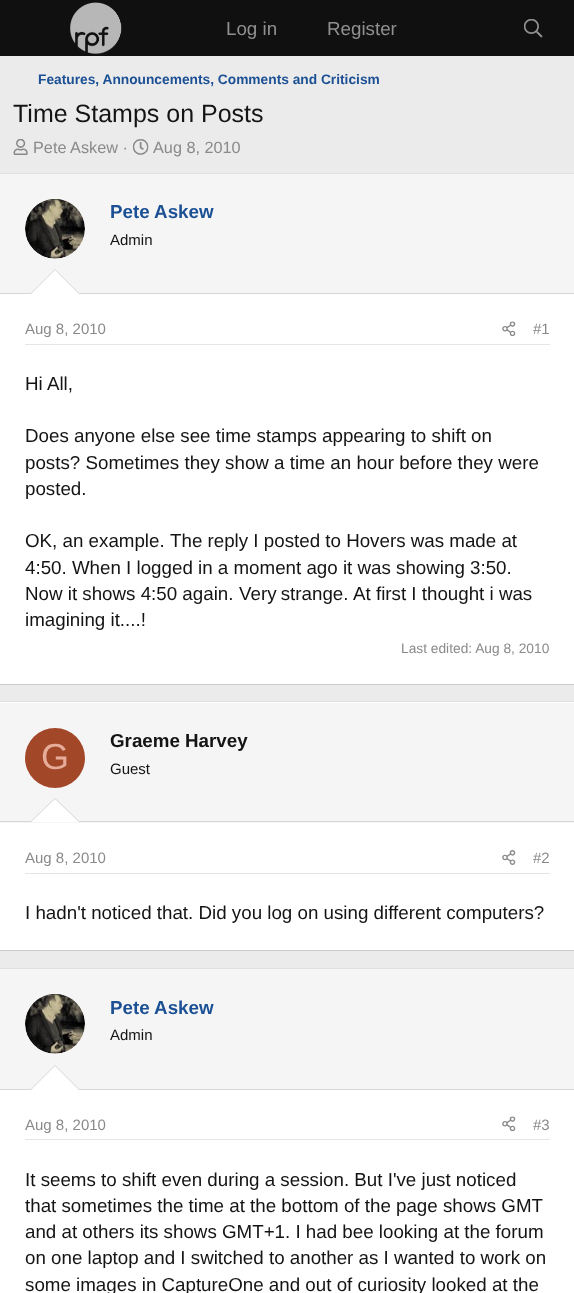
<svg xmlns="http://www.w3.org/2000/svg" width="574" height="1293">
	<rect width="100%" height="100%" fill="#EBEBEB" />
	<rect x="0" y="0" width="574" height="56" fill="#101010" />
	<image x="70" y="2" width="52" height="52" href="assets/img1.png" />
	<g font-family="Liberation Sans" font-size="18.75" fill="#909090">
		<text x="226" y="35">Log in</text>
		<text x="327" y="35">Register</text>
	</g>
	<image x="524" y="19" width="19" height="19" href="assets/img2.png" />
	<text x="38" y="84" font-family="Liberation Sans" font-size="13.75" font-weight="700" fill="#1C5094">Features, Announcements, Comments and Criticism</text>
	<text x="13" y="122" font-family="Liberation Sans" font-size="25" fill="#141414">Time Stamps on Posts</text>
	<image x="13" y="139" width="15" height="16" href="assets/img3.png" />
	<text x="33" y="153" font-family="Liberation Sans" font-size="16.25" fill="#8A8A8A">Pete Askew ·</text>
	<image x="132" y="139" width="17" height="16" href="assets/img4.png" />
	<text x="153" y="153" font-family="Liberation Sans" font-size="16.25" fill="#8A8A8A">Aug 8, 2010</text>
	<rect x="0" y="294" width="574" height="390" fill="#FFFFFF" />
	<rect x="0" y="173" width="574" height="1" fill="#E0E0E0" />
	<rect x="0" y="684" width="574" height="1" fill="#CCCCCC" />
	<rect x="0" y="174" width="574" height="119" fill="#F5F5F5" />
	<rect x="0" y="293" width="574" height="1" fill="#D6D6D6" />
	<circle cx="55" cy="229" r="30" fill="#FFFFFF" />
	<image x="25" y="199" width="60" height="60" href="assets/img5.png" />
	<text x="110" y="218" font-family="Liberation Sans" font-size="18.75" font-weight="700" fill="#1C5094">Pete Askew</text>
	<text x="110" y="245" font-family="Liberation Sans" font-size="15" fill="#141414">Admin</text>
	<path d="M80 294H30L55 269Z" fill="#D6D6D6" />
	<path d="M79 294H31L55 270Z" fill="#FFFFFF" />
	<rect x="25" y="344" width="525" height="1" fill="#E5E5E5" />
	<text x="25" y="334" font-family="Liberation Sans" font-size="15" fill="#8A8A8A">Aug 8, 2010</text>
	<image x="502" y="321" width="14" height="15" href="assets/img6.png" />
	<text x="533" y="334" font-family="Liberation Sans" font-size="15" fill="#8A8A8A">#1</text>
	<g font-family="Liberation Sans" font-size="18.75" fill="#141414">
		<text x="25" y="390">Hi All,</text>
		<text x="25" y="442">Does anyone else see time stamps appearing to shift on</text>
		<text x="25" y="469">posts? Sometimes they show a time an hour before they were</text>
		<text x="25" y="495">posted.</text>
		<text x="25" y="547">OK, an example.</text>
		<text x="170" y="547">The reply I posted to Hovers was made at</text>
		<text x="25" y="574">4:50. When I logged in a moment ago it was showing 3:50.</text>
		<text x="25" y="600">Now it shows 4:50 again.</text>
		<text x="239" y="600" word-spacing="-1">Very strange.</text>
		<text x="353" y="600">At first I thought i was</text>
		<text x="25" y="626">imagining it....!</text>
	</g>
	<text x="401" y="653" font-family="Liberation Sans" font-size="13.75" fill="#8A8A8A">Last edited: Aug 8, 2010</text>
	<rect x="0" y="702" width="574" height="248" fill="#FFFFFF" />
	<rect x="0" y="701" width="574" height="1" fill="#E0E0E0" />
	<rect x="0" y="950" width="574" height="1" fill="#CCCCCC" />
	<rect x="0" y="703" width="574" height="120" fill="#F5F5F5" />
	<rect x="0" y="821" width="574" height="1" fill="#D6D6D6" />
	<circle cx="55" cy="758" r="30" fill="#A34729" />
	<text x="41" y="769" font-family="Liberation Sans" font-size="36" fill="#E6AC99">G</text>
	<text x="110" y="747" font-family="Liberation Sans" font-size="18.75" font-weight="700" fill="#141414">Graeme Harvey</text>
	<text x="110" y="774" font-family="Liberation Sans" font-size="15" fill="#141414">Guest</text>
	<path d="M80 822H30L55 798Z" fill="#D6D6D6" />
	<path d="M79 822H31L55 799Z" fill="#FFFFFF" />
	<rect x="25" y="873" width="525" height="1" fill="#E5E5E5" />
	<text x="25" y="863" font-family="Liberation Sans" font-size="15" fill="#8A8A8A">Aug 8, 2010</text>
	<image x="502" y="850" width="14" height="15" href="assets/img7.png" />
	<text x="533" y="863" font-family="Liberation Sans" font-size="15" fill="#8A8A8A">#2</text>
	<text x="25" y="919" font-family="Liberation Sans" font-size="18.75" fill="#141414">I hadn't noticed that. Did you log on using different computers?</text>
	<rect x="0" y="1090" width="574" height="203" fill="#FFFFFF" />
	<rect x="0" y="968" width="574" height="1" fill="#E0E0E0" />
	<rect x="0" y="969" width="574" height="120" fill="#F5F5F5" />
	<rect x="0" y="1089" width="574" height="1" fill="#D6D6D6" />
	<circle cx="55" cy="1024" r="30" fill="#FFFFFF" />
	<image x="25" y="994" width="60" height="60" href="assets/img8.png" />
	<text x="110" y="1014" font-family="Liberation Sans" font-size="18.75" font-weight="700" fill="#1C5094">Pete Askew</text>
	<text x="110" y="1040" font-family="Liberation Sans" font-size="15" fill="#141414">Admin</text>
	<path d="M80 1090H30L55 1065Z" fill="#D6D6D6" />
	<path d="M79 1090H31L55 1066Z" fill="#FFFFFF" />
	<rect x="25" y="1139" width="525" height="1" fill="#E5E5E5" />
	<text x="25" y="1130" font-family="Liberation Sans" font-size="15" fill="#8A8A8A">Aug 8, 2010</text>
	<image x="502" y="1116" width="14" height="15" href="assets/img6.png" />
	<text x="533" y="1130" font-family="Liberation Sans" font-size="15" fill="#8A8A8A">#3</text>
	<g font-family="Liberation Sans" font-size="18.75" fill="#141414">
		<text x="25" y="1186">It seems to shift even during a session. But I've just noticed</text>
		<text x="25" y="1212">that sometimes the time at the bottom of the page shows GMT</text>
		<text x="25" y="1238">and at others its shows GMT+1. I had bee looking at the forum</text>
		<text x="25" y="1264">on one laptop and I switched to another as I wanted to work on</text>
		<text x="25" y="1291">some images in CaptureOne and out of curiosity looked at the</text>
	</g>
</svg>
